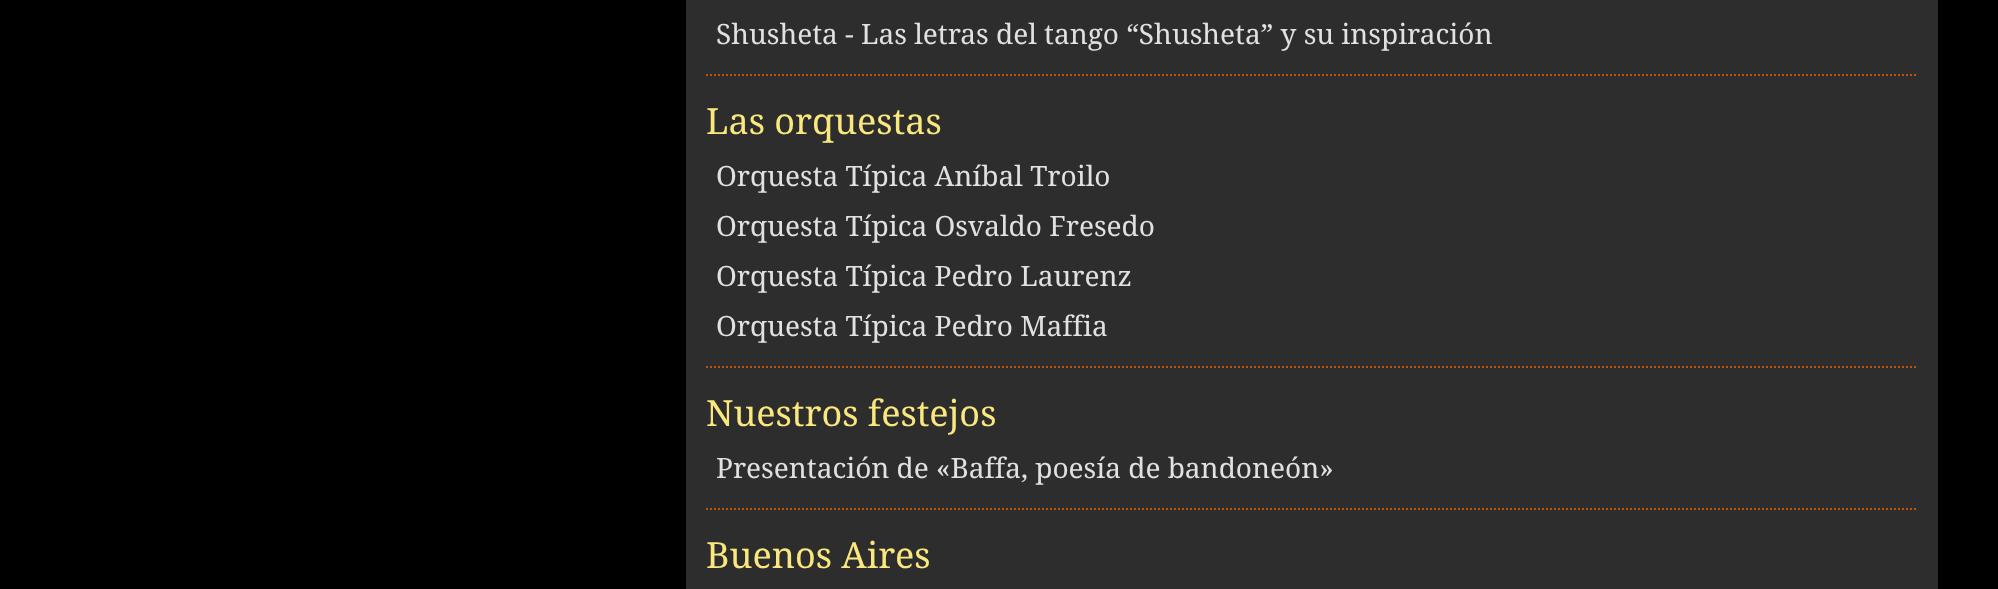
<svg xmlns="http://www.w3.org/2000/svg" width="1998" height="589">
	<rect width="100%" height="100%" fill="#000000" />
	<rect x="686" y="0" width="1252" height="589" fill="#2D2D2D" />
	<text x="716" y="44" font-family="Droid Serif" font-size="28" fill="#E1E1E1">Shusheta - Las letras del tango “Shusheta” y su inspiración</text>
	<path d="M706 75H1918" fill="none" stroke="#BD5208" stroke-width="2" stroke-dasharray="2 2" />
	<text x="706" y="134" font-family="Droid Serif" font-size="36" fill="#FAE77E">Las orquestas</text>
	<g font-family="Droid Serif" font-size="28" fill="#E1E1E1">
		<text x="716" y="186">Orquesta Típica Aníbal Troilo</text>
		<text x="716" y="236">Orquesta Típica Osvaldo Fresedo</text>
		<text x="716" y="286">Orquesta Típica Pedro Laurenz</text>
		<text x="716" y="336">Orquesta Típica Pedro Maffia</text>
	</g>
	<path d="M706 367H1918" fill="none" stroke="#BD5208" stroke-width="2" stroke-dasharray="2 2" />
	<text x="706" y="426" font-family="Droid Serif" font-size="36" fill="#FAE77E">Nuestros festejos</text>
	<text x="716" y="478" font-family="Droid Serif" font-size="28" fill="#E1E1E1">Presentación de «Baffa, poesía de bandoneón»</text>
	<path d="M706 509H1918" fill="none" stroke="#BD5208" stroke-width="2" stroke-dasharray="2 2" />
	<text x="706" y="568" font-family="Droid Serif" font-size="36" fill="#FAE77E">Buenos Aires</text>
</svg>
